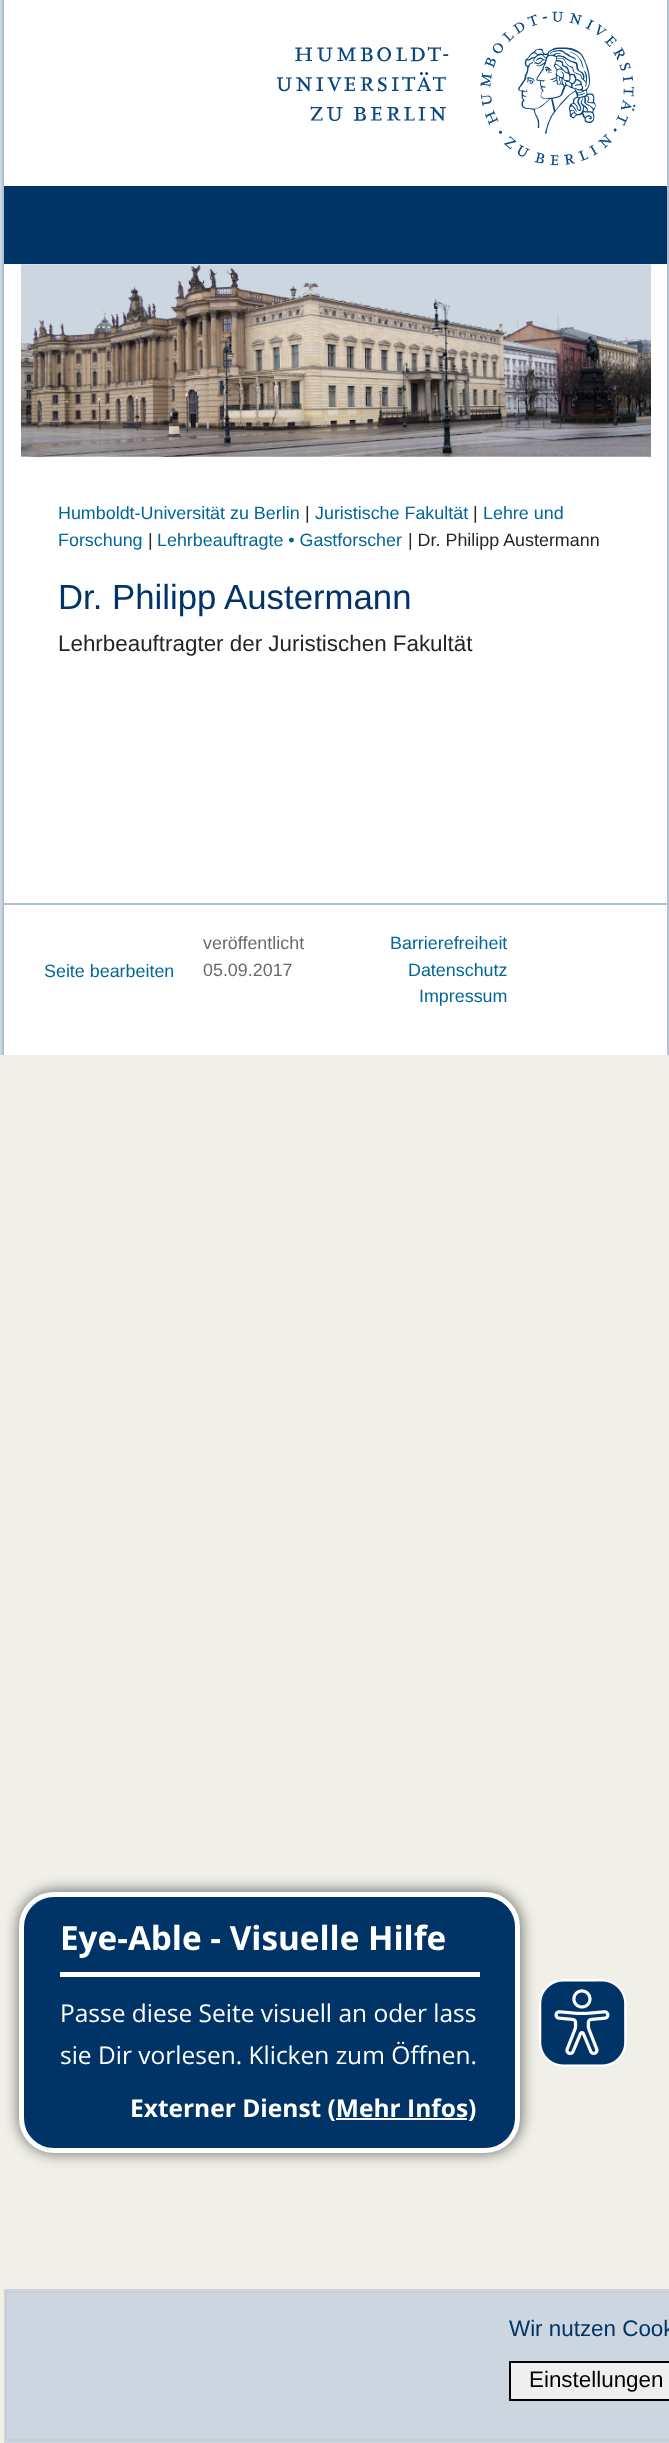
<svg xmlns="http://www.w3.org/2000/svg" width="669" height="2443">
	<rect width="100%" height="100%" fill="#F0F0E8" />
	<rect x="0" y="0" width="2" height="1055" fill="#CCD6E0" />
	<rect x="4" y="0" width="663" height="1055" fill="#FFFFFF" />
	<image x="277" y="11" width="359" height="155" href="assets/img1.png" />
	<rect x="4" y="186" width="663" height="78" fill="#003366" />
	<image x="21" y="264" width="630" height="193" href="assets/img2.png" />
	<rect x="667" y="0" width="2" height="1055" fill="#B2C1D1" />
	<rect x="2" y="0" width="2" height="1055" fill="#B2C1D1" />
	<text x="58" y="519" font-family="Liberation Sans" font-size="17.9" fill="#006699">Humboldt-Universität zu Berlin</text>
	<text x="305" y="519" font-family="Liberation Sans" font-size="17.9" fill="#212529">|</text>
	<text x="315" y="519" font-family="Liberation Sans" font-size="17.9" fill="#006699">Juristische Fakultät</text>
	<text x="473" y="519" font-family="Liberation Sans" font-size="17.9" fill="#212529">|</text>
	<g font-family="Liberation Sans" font-size="17.9" fill="#006699">
		<text x="483" y="519">Lehre und</text>
		<text x="58" y="546">Forschung</text>
	</g>
	<text x="148" y="546" font-family="Liberation Sans" font-size="17.9" fill="#212529">|</text>
	<text x="157" y="546" font-family="Liberation Sans" font-size="17.9" fill="#006699">Lehrbeauftragte • Gastforscher</text>
	<text x="408" y="546" font-family="Liberation Sans" font-size="17.9" fill="#212529">| Dr. Philipp Austermann</text>
	<text x="58" y="609" font-family="Liberation Sans" font-size="34.75" fill="#003366">Dr. Philipp Austermann</text>
	<text x="58" y="651" font-family="Liberation Sans" font-size="22.4" fill="#212529">Lehrbeauftragter der Juristischen Fakultät</text>
	<rect x="4" y="903" width="663" height="2" fill="#B2C1D1" />
	<text x="44" y="977" font-family="Liberation Sans" font-size="17.9" fill="#006699">Seite bearbeiten</text>
	<g font-family="Liberation Sans" font-size="17.9" fill="#696969">
		<text x="203" y="949">veröffentlicht</text>
		<text x="203" y="976">05.09.2017</text>
	</g>
	<g font-family="Liberation Sans" font-size="17.9" fill="#006699">
		<text x="390" y="949">Barrierefreiheit</text>
		<text x="408" y="976">Datenschutz</text>
		<text x="419" y="1002">Impressum</text>
	</g>
	<rect x="5" y="2290" width="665" height="152" fill="none" stroke="#CCD6E0" stroke-width="2" />
	<rect x="6" y="2292" width="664" height="148" fill="#CCD6E0" stroke="#CCCCCC" stroke-width="2" />
	<text x="509" y="2336" font-family="Liberation Sans" font-size="22.4" fill="#003366">Wir nutzen Cook</text>
	<rect x="510" y="2362" width="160" height="38" fill="#EFEFEF" stroke="#000000" stroke-width="2" />
	<text x="529" y="2387" font-family="Liberation Sans" font-size="22.4" fill="#000000">Einstellungen</text>
	<rect x="18" y="1890" width="504" height="264" rx="37" fill="#000000" fill-opacity="0.5" filter="blur(7px)" />
	<rect x="21.5" y="1894.5" width="496" height="256" rx="32.5" fill="#003366" stroke="#FFFFFF" stroke-width="5" />
	<rect x="60" y="1972" width="420" height="5" fill="#FFFFFF" />
	<text x="60" y="1950" font-family="Open Sans" font-size="33.25" font-weight="700" fill="#FFFFFF">Eye-Able - Visuelle Hilfe</text>
	<g font-family="Open Sans" font-size="24.5" fill="#FFFFFF">
		<text x="60" y="2022">Passe diese Seite visuell an oder lass</text>
		<text x="60" y="2064">sie Dir vorlesen. Klicken zum Öffnen.</text>
	</g>
	<text x="130" y="2117" font-family="Open Sans" font-size="24.5" font-weight="700" fill="#FFFFFF">Externer Dienst (Mehr Infos)</text>
	<rect x="336" y="2118" width="131" height="2" fill="#FFFFFF" />
	<image x="539" y="1979" width="88" height="88" href="assets/img3.png" />
</svg>
